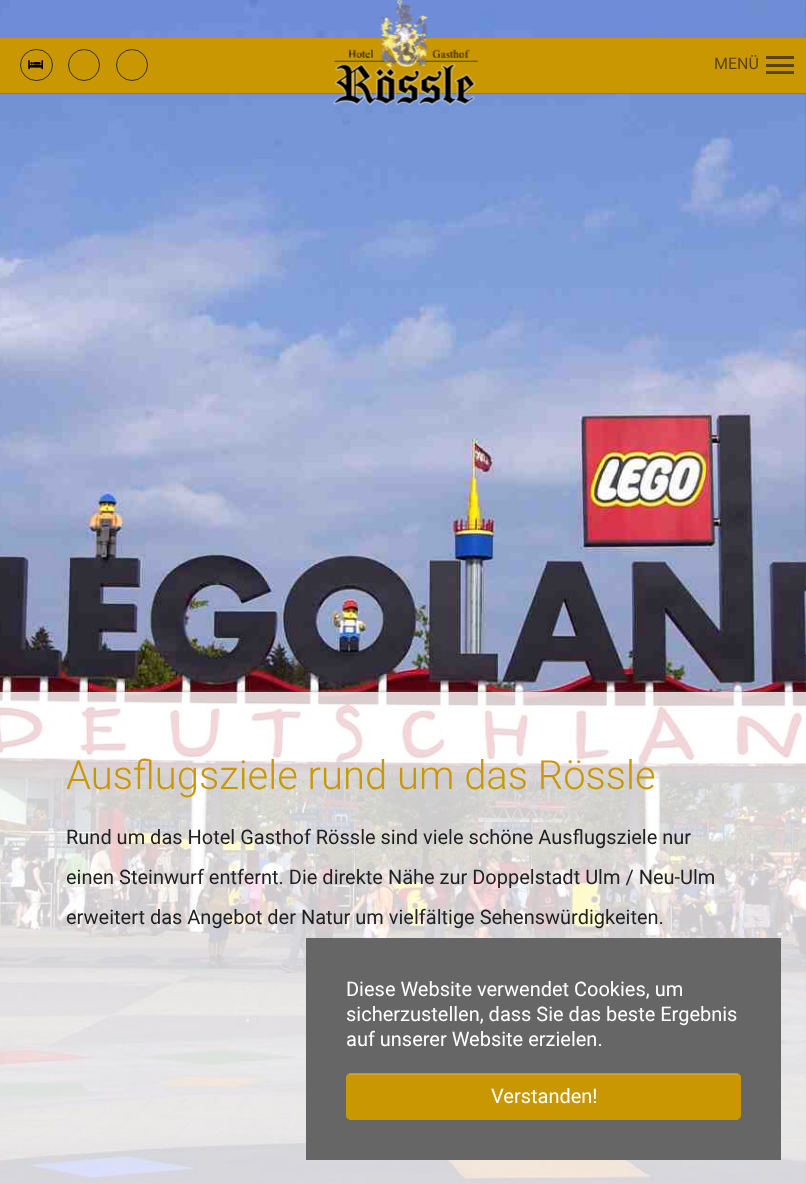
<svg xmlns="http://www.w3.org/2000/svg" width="806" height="1184">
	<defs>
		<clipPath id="clip1"><rect x="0" y="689" width="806" height="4" /></clipPath>
	</defs>
	<rect width="100%" height="100%" fill="#FFFFFF" />
	<image x="805" y="0" width="1" height="1184" href="assets/img2.png" />
	<image x="805" y="0" width="1" height="1184" href="assets/img3.png" />
	<image x="805" y="0" width="1" height="1184" href="assets/img4.png" />
	<image x="805" y="0" width="1" height="1184" href="assets/img5.png" />
	<image x="0" y="0" width="806" height="1184" href="assets/img1.png" />
	<rect x="0" y="93" width="806" height="1" fill="#000000" fill-opacity="0.15" />
	<rect x="0" y="38" width="806" height="55" fill="#C99702" />
	<image x="28" y="60" width="15" height="10" href="assets/img6.png" />
	<rect x="20.5" y="49.5" width="32" height="31" rx="15.5" fill="none" stroke="#333333" />
	<circle cx="84" cy="65" r="15.5" fill="none" stroke="#333333" />
	<circle cx="132" cy="65" r="15.5" fill="none" stroke="#333333" />
	<image x="333" y="0" width="146" height="106" href="assets/img7.png" />
	<text x="714" y="69" font-family="Roboto" font-size="16" fill="#5A4401">MENÜ</text>
	<rect x="766" y="64" width="28" height="3" fill="#5A4401" />
	<rect x="766" y="56" width="28" height="3" fill="#5A4401" />
	<rect x="766" y="71" width="28" height="3" fill="#5A4401" />
	<g clip-path="url(#clip1)">
		<rect x="0" y="693" width="806" height="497" fill="#666666" filter="blur(2px)" />
	</g>
	<rect x="0" y="692" width="806" height="492" fill="#FFFFFF" fill-opacity="0.8" />
	<text x="66" y="789" font-family="Roboto" font-size="40" font-weight="300" fill="#C99702">Ausflugsziele rund um das Rössle</text>
	<g font-family="Roboto" font-size="20" fill="#212121">
		<text x="66" y="844">Rund um das Hotel Gasthof Rössle sind viele schöne Ausflugsziele nur</text>
		<text x="66" y="884">einen Steinwurf entfernt. Die direkte Nähe zur Doppelstadt Ulm / Neu-Ulm</text>
		<text x="66" y="924">erweitert das Angebot der Natur um vielfältige Sehenswürdigkeiten.</text>
	</g>
	<rect x="306" y="938" width="475" height="222" fill="#666666" />
	<g font-family="Roboto" font-size="20" fill="#FFFFFF">
		<text x="346" y="996">Diese Website verwendet Cookies, um</text>
		<text x="346" y="1021">sicherzustellen, dass Sie das beste Ergebnis</text>
		<text x="346" y="1046">auf unserer Website erzielen.</text>
	</g>
	<rect x="346" y="1073" width="395" height="47" rx="5" fill="#C99702" />
	<path d="M351 1075H736C738 1075 740 1077 740 1079C740 1076 739 1074 736 1074H352C349 1074 348 1076 348 1079C348 1077 349 1075 351 1075Z" fill="#D1A728" />
	<rect x="346.5" y="1073.5" width="394" height="46" rx="4.5" fill="none" stroke="#C99702" />
	<text x="491" y="1103" font-family="Roboto" font-size="20" fill="#FFFFFF">Verstanden!</text>
</svg>
